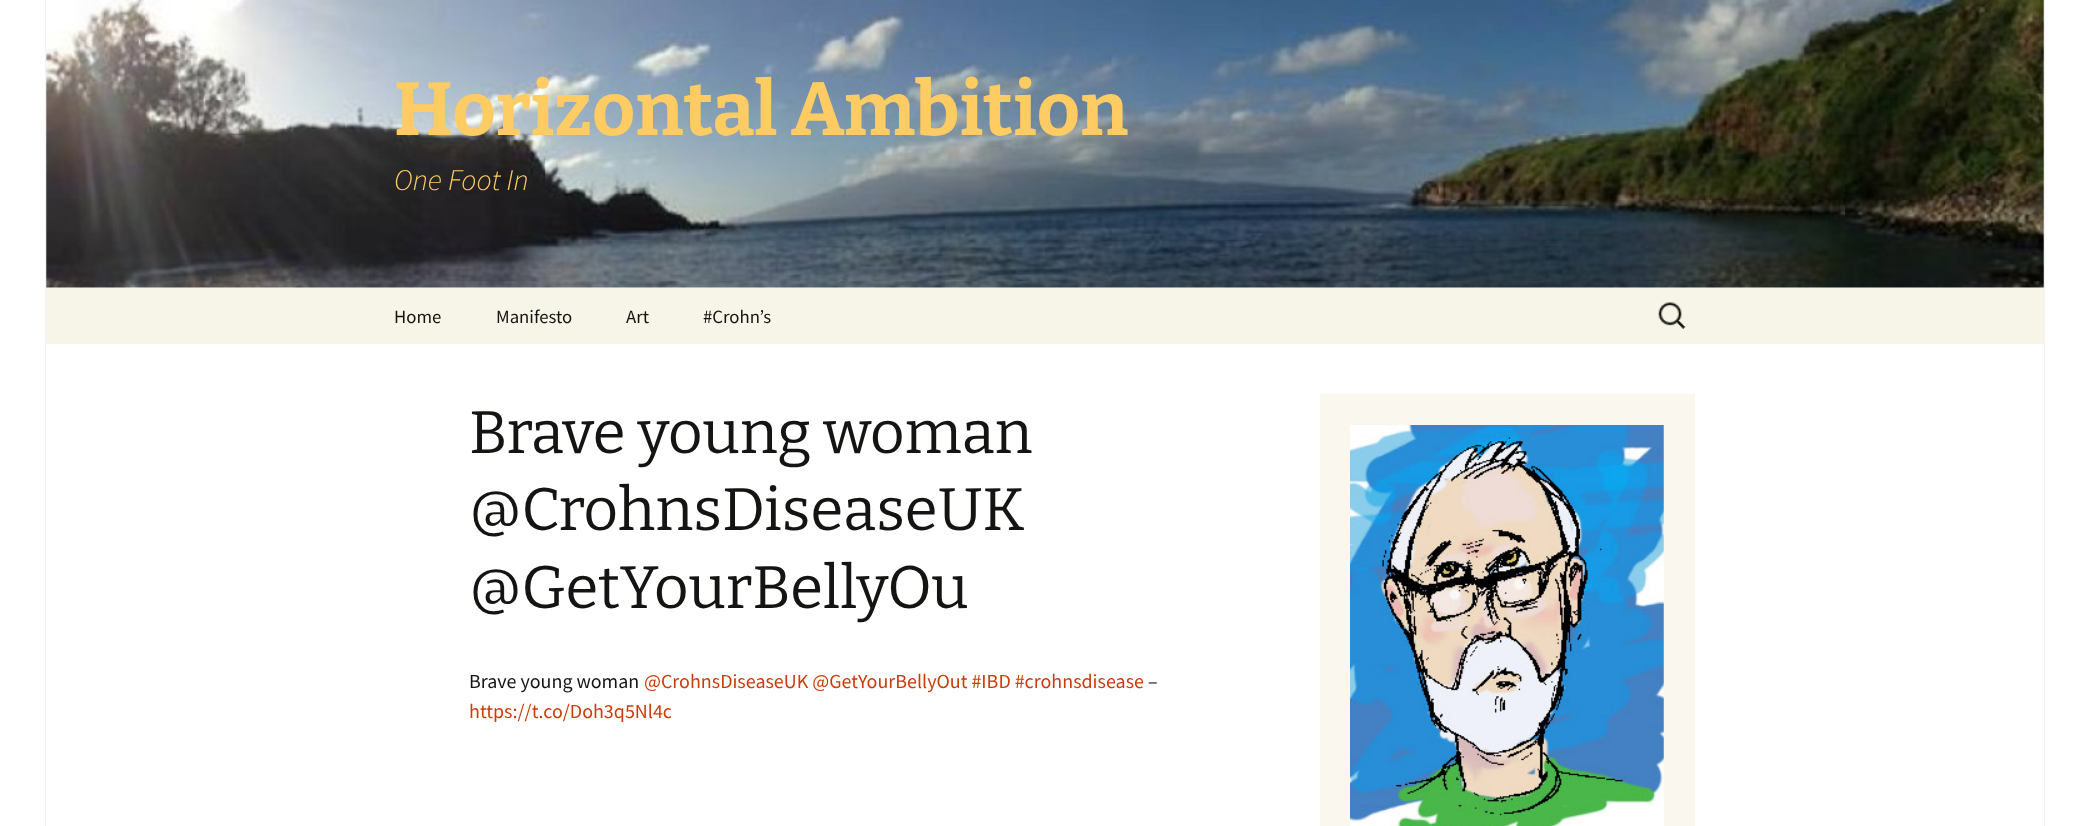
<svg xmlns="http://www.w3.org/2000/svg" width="2088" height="826">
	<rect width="100%" height="100%" fill="#FFFFFF" />
	<rect x="2044" y="0" width="1" height="826" fill="#F2F2F2" />
	<rect x="45" y="0" width="1" height="826" fill="#F2F2F2" />
	<image x="46" y="0" width="1998" height="288" href="assets/img1.png" />
	<text x="394" y="135" font-family="Bitter" font-size="75" font-weight="100" fill="#FFCB63">Horizontal Ambition</text>
	<text x="394" y="190" font-family="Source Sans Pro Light" font-size="30" font-weight="300" font-style="italic" fill="#FFCB63">One Foot In</text>
	<rect x="46" y="288" width="1998" height="56" fill="#F7F5E7" />
	<g font-family="Source Sans Pro" font-size="18.75" fill="#141412">
		<text x="394" y="323">Home</text>
		<text x="496" y="323">Manifesto</text>
		<text x="626" y="323">Art</text>
		<text x="703" y="323">#Crohn’s</text>
	</g>
	<image x="1658" y="302" width="28" height="27" href="assets/img2.png" />
	<g font-family="'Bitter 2'" font-size="60" font-weight="100" fill="#141412">
		<text x="469" y="453">Brave young woman</text>
		<text x="469" y="530">@CrohnsDiseaseUK</text>
		<text x="469" y="608">@GetYourBellyOu</text>
	</g>
	<text x="469" y="688" font-family="Source Sans Pro" font-size="20" fill="#141412">Brave young woman</text>
	<text x="644" y="688" font-family="Source Sans Pro" font-size="20" fill="#CA3C08">@CrohnsDiseaseUK @GetYourBellyOut #IBD #crohnsdisease</text>
	<text x="1148" y="688" font-family="Source Sans Pro" font-size="20" fill="#141412">–</text>
	<text x="469" y="718" font-family="Source Sans Pro" font-size="20" fill="#CA3C08">https://t.co/Doh3q5Nl4c</text>
	<rect x="1320" y="394" width="375" height="432" fill="#FAF8EE" />
	<image x="1350" y="425" width="314" height="401" href="assets/img3.png" />
</svg>
